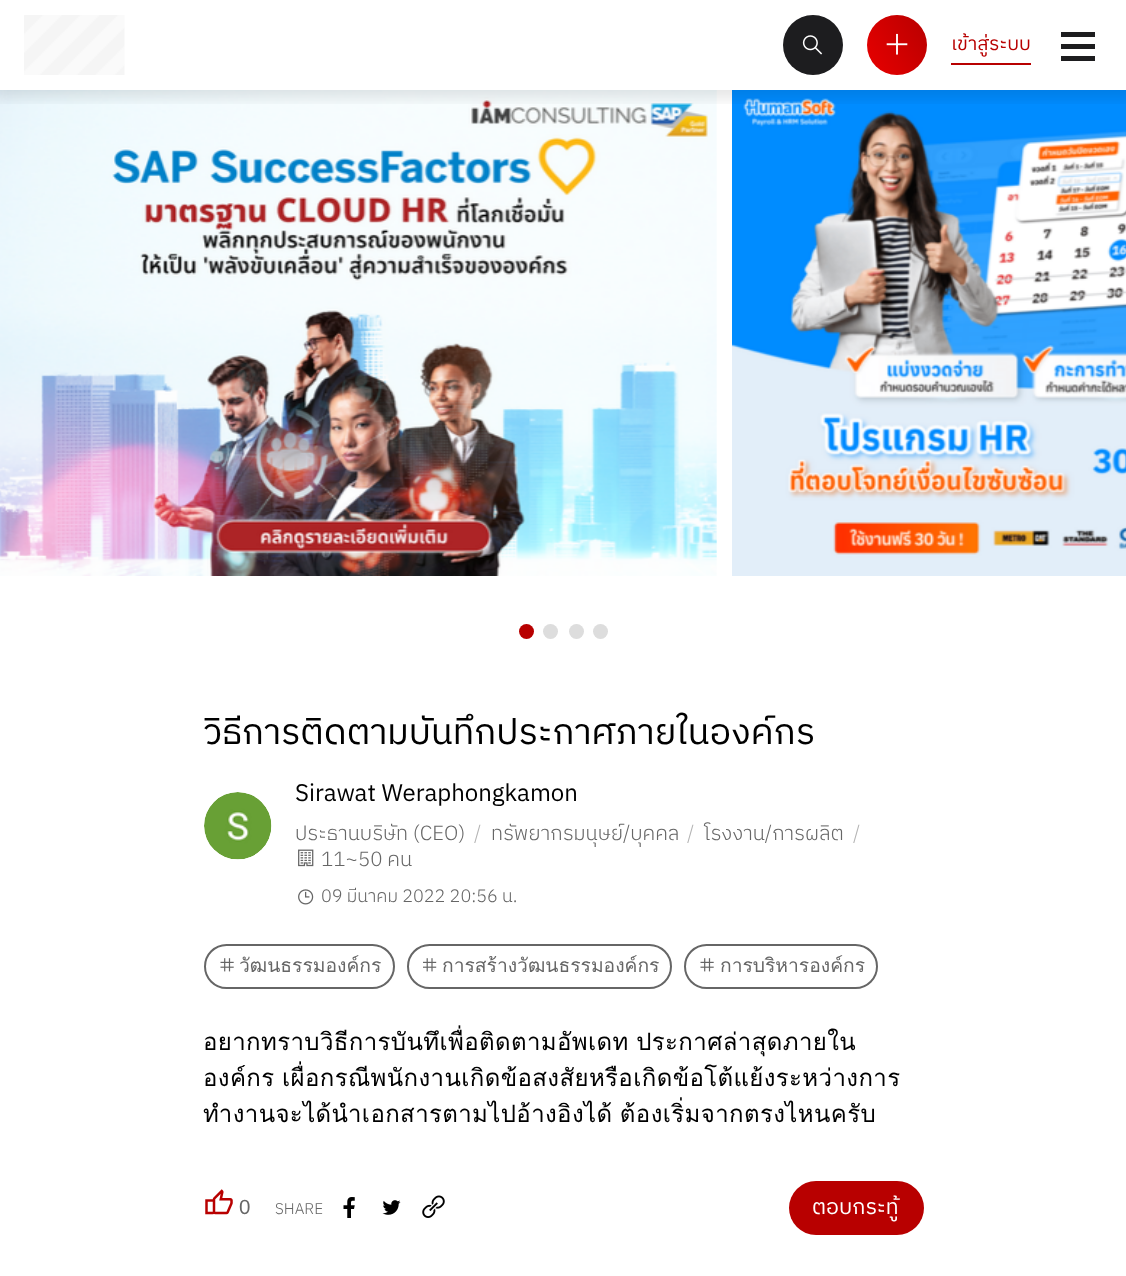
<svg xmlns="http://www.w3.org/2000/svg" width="1126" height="1276">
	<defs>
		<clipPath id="clip1"><rect x="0" y="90" width="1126" height="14" /></clipPath>
		<linearGradient id="g1" gradientUnits="userSpaceOnUse" x1="862" y1="65" x2="932" y2="25"><stop offset="0" stop-color="#E80000" /><stop offset="1" stop-color="#B80000" /></linearGradient>
	</defs>
	<rect width="100%" height="100%" fill="#FFFFFF" />
	<image x="0" y="90" width="717" height="486" href="assets/img4.png" />
	<image x="732" y="90" width="394" height="486" href="assets/img5.png" />
	<g clip-path="url(#clip1)">
		<rect x="-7" y="-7" width="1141" height="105" fill="#000000" fill-opacity="0.1" filter="blur(7.5px)" />
	</g>
	<image x="24" y="15" width="101" height="60" href="assets/img1.png" />
	<circle cx="813" cy="45" r="30" fill="#1D1D1F" />
	<image x="802" y="35" width="21" height="20" href="assets/img2.png" />
	<circle cx="897" cy="45" r="30" fill="url(#g1)" />
	<image x="886" y="33" width="22" height="22" href="assets/img3.png" />
	<text x="951" y="50" font-family="IBM Plex Sans Thai" font-size="19.25" fill="#B80000">เข้าสู่ระบบ</text>
	<rect x="951" y="63" width="80" height="2" fill="#B80000" />
	<rect x="1061" y="32" width="34" height="5" fill="#1D1D1F" />
	<rect x="1061" y="44" width="34" height="5" fill="#1D1D1F" />
	<rect x="1061" y="56" width="34" height="5" fill="#1D1D1F" />
	<circle cx="526.5" cy="631.5" r="7.5" fill="#B80000" />
	<circle cx="550.5" cy="631.5" r="7.5" fill="#DDDDDD" />
	<circle cx="576.5" cy="631.5" r="7.5" fill="#DDDDDD" />
	<circle cx="600.5" cy="631.5" r="7.5" fill="#DDDDDD" />
	<text x="203" y="744" font-family="IBM Plex Sans Thai" font-size="36" fill="#000000">วิธีการติดตามบันทึกประกาศภายในองค์กร</text>
	<image x="204" y="792" width="68" height="68" href="assets/img6.png" />
	<text x="295" y="801" font-family="IBM Plex Sans Thai" font-size="24" fill="#000000">Sirawat Weraphongkamon</text>
	<text x="295" y="840" font-family="IBM Plex Sans Thai" font-size="20.5" font-weight="300" fill="#666666">ประธานบริษัท (CEO)</text>
	<text x="474" y="840" font-family="IBM Plex Sans Thai" font-size="20.5" font-weight="300" fill="#B3B3B3">/</text>
	<text x="491" y="840" font-family="IBM Plex Sans Thai" font-size="20.5" font-weight="300" fill="#666666">ทรัพยากรมนุษย์/บุคคล</text>
	<text x="687" y="840" font-family="IBM Plex Sans Thai" font-size="20.5" font-weight="300" fill="#B3B3B3">/</text>
	<text x="704" y="840" font-family="IBM Plex Sans Thai" font-size="20.5" font-weight="300" fill="#666666">โรงงาน/การผลิต</text>
	<text x="853" y="840" font-family="IBM Plex Sans Thai" font-size="20.5" font-weight="300" fill="#B3B3B3">/</text>
	<image x="298" y="849" width="16" height="18" href="assets/img7.png" />
	<text x="321" y="866" font-family="IBM Plex Sans Thai" font-size="20.5" font-weight="300" fill="#666666">11~50 คน</text>
	<image x="298" y="889" width="16" height="16" href="assets/img8.png" />
	<text x="321" y="902" font-family="IBM Plex Sans Thai" font-size="18" font-weight="300" fill="#666666">09 มีนาคม 2022 20:56 น.</text>
	<rect x="205" y="945" width="189" height="43" rx="21.5" fill="none" stroke="#666666" stroke-width="2" />
	<image x="220" y="958" width="14" height="14" href="assets/img9.png" />
	<text x="239" y="972" font-family="Loma" font-size="19.25" fill="#666666">วัฒนธรรมองค์กร</text>
	<rect x="408" y="945" width="263" height="43" rx="21.5" fill="none" stroke="#666666" stroke-width="2" />
	<image x="423" y="958" width="14" height="14" href="assets/img10.png" />
	<text x="442" y="972" font-family="Loma" font-size="19.25" fill="#666666">การสร้างวัฒนธรรมองค์กร</text>
	<rect x="685" y="945" width="192" height="43" rx="21.5" fill="none" stroke="#666666" stroke-width="2" />
	<image x="700" y="958" width="14" height="14" href="assets/img9.png" />
	<text x="720" y="972" font-family="Loma" font-size="19.25" fill="#666666">การบริหารองค์กร</text>
	<g font-family="Loma" font-size="24" letter-spacing="0.38" fill="#000000">
		<text x="203" y="1050" word-spacing="-1">อยากทราบวิธีการบันทึเพื่อติดตามอัพเดท ประกาศล่าสุดภายใน</text>
		<text x="203" y="1086" word-spacing="-1">องค์กร เผื่อกรณีพนักงานเกิดข้อสงสัยหรือเกิดข้อโต้แย้งระหว่างการ</text>
		<text x="203" y="1122" word-spacing="-1">ทำงานจะได้นำเอกสารตามไปอ้างอิงได้ ต้องเริ่มจากตรงไหนครับ</text>
	</g>
	<image x="205" y="1189" width="28" height="26" href="assets/img11.png" />
	<text x="239" y="1214" font-family="Liberation Sans" font-size="20.5" fill="#666666">0</text>
	<text x="275" y="1214" font-family="IBM Plex Sans Thai" font-size="15.5" font-weight="300" fill="#666666">SHARE</text>
	<image x="343" y="1197" width="12" height="21" href="assets/img12.png" />
	<image x="382" y="1200" width="19" height="15" href="assets/img13.png" />
	<image x="422" y="1195" width="23" height="23" href="assets/img14.png" />
	<rect x="789" y="1181" width="135" height="54" rx="27" fill="#B80000" />
	<text x="812" y="1214" font-family="IBM Plex Sans Thai" font-size="21.5" fill="#FFFFFF">ตอบกระทู้</text>
</svg>
